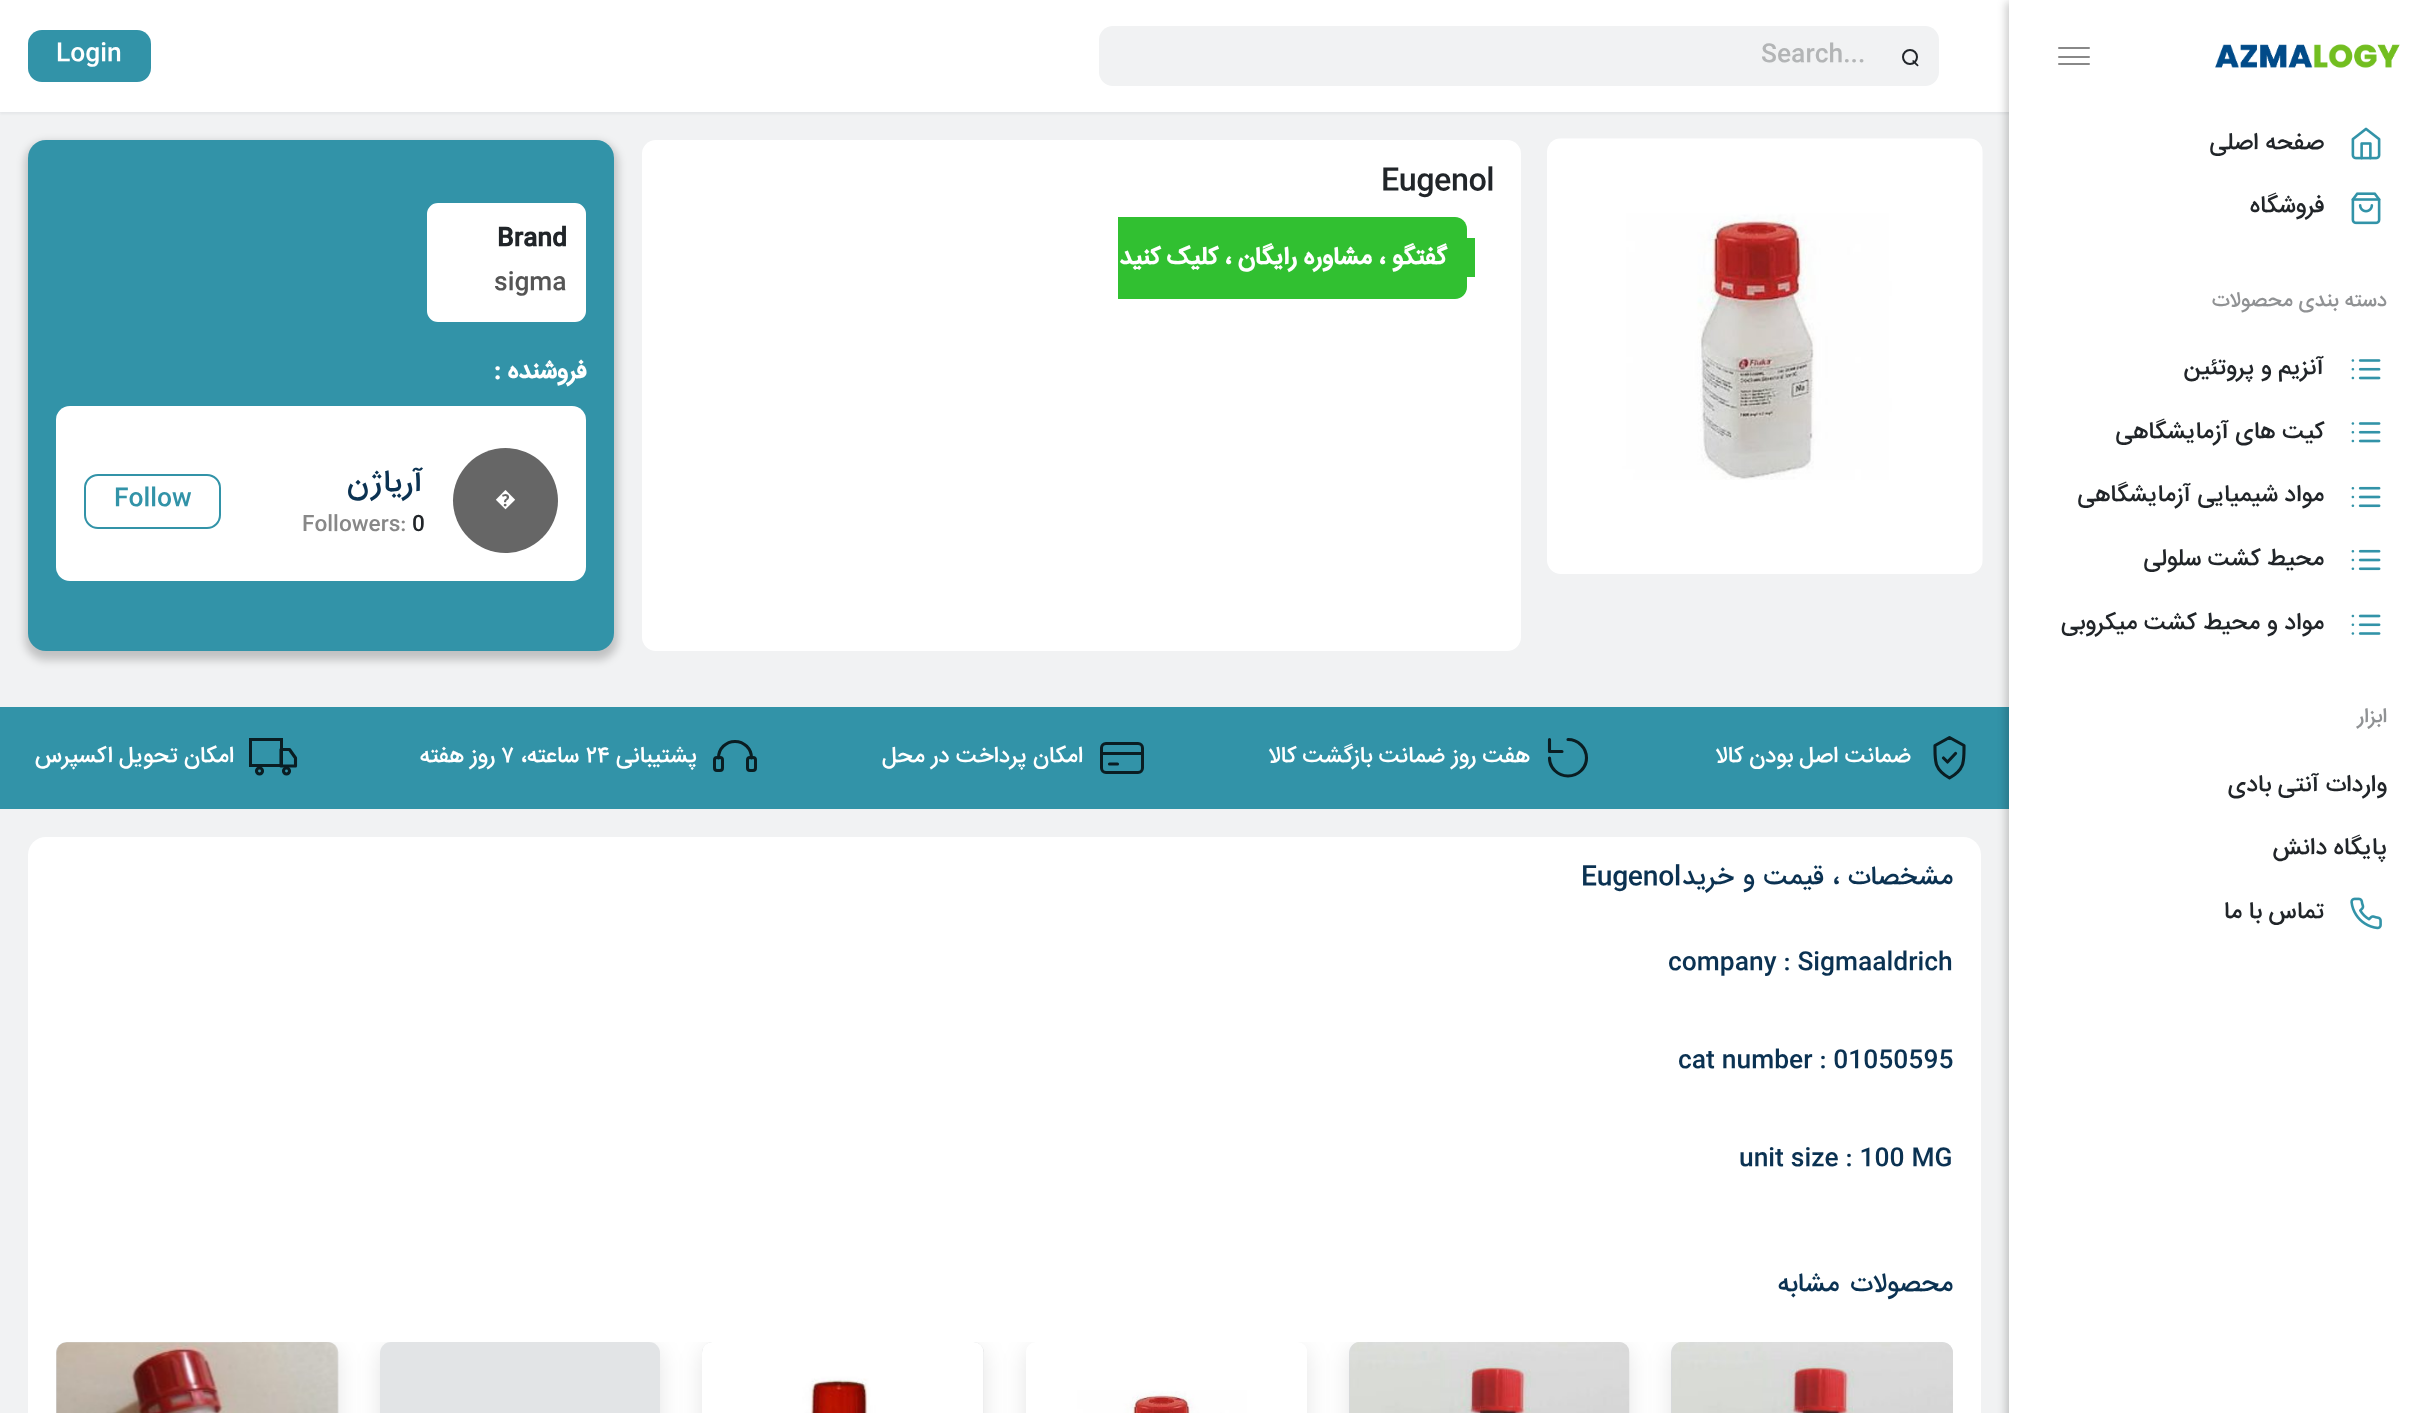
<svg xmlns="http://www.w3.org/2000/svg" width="2429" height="1413">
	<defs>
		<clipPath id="clip1"><rect x="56" y="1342" width="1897" height="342" rx="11" /></clipPath>
		<clipPath id="clip2"><path d="M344 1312H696V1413H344ZM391 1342H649C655 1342 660 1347 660 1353V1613C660 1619 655 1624 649 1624H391C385 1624 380 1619 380 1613V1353C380 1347 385 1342 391 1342Z" clip-rule="evenodd" /></clipPath>
	</defs>
	<rect width="100%" height="100%" fill="#F1F2F3" />
	<rect x="0" y="2" width="2429" height="112" fill="#828C96" fill-opacity="0.1" filter="blur(1px)" />
	<rect x="0" y="0" width="2009" height="112" fill="#FFFFFF" />
	<rect x="1099" y="26" width="840" height="60" rx="14" fill="#F1F2F3" />
	<circle cx="1910" cy="57" r="7" fill="none" stroke="#212529" stroke-width="2" />
	<path d="M1914 60.5L1916 62.5C1916.5 63.5 1918.5 64.5 1918.5 65.5C1918 68 1914.5 63.5 1914 63L1912.5 61.5C1912 60.5 1913 60 1914 60.5Z" fill="#212529" />
	<text x="1761" y="61" font-family="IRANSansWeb" font-size="24.5" font-weight="500" fill="#B3B5B6">Search...</text>
	<rect x="28" y="30" width="123" height="52" rx="14" fill="#3293A8" />
	<text x="56" y="60" font-family="IRANSansWeb" font-size="24.5" font-weight="500" fill="#FFFFFF">Login</text>
	<rect x="0" y="707" width="2009" height="102" fill="#3293A8" />
	<rect x="2006" y="2" width="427" height="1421" fill="#000000" fill-opacity="0.2" filter="blur(4.5px)" />
	<rect x="2009" y="0" width="420" height="1413" fill="#FFFFFF" />
	<image x="2215" y="44" width="185" height="24" href="assets/img1.png" />
	<rect x="2058" y="56" width="32" height="2" rx="1" fill="#888888" />
	<rect x="2058" y="47" width="32" height="2" rx="1" fill="#888888" />
	<rect x="2058" y="63" width="32" height="2" rx="1" fill="#888888" />
	<image x="2351" y="127" width="30" height="33" href="assets/img2.png" />
	<text x="2324" y="149" font-family="IRANSansWeb" font-size="23.75" font-weight="500" direction="rtl" fill="#212529">صفحه اصلی</text>
	<image x="2351" y="192" width="30" height="33" href="assets/img3.png" />
	<text x="2324" y="212" font-family="IRANSansWeb" font-size="23.75" font-weight="500" direction="rtl" fill="#212529">فروشگاه</text>
	<text x="2387" y="306" font-family="IRANSansWeb" font-size="20.75" font-weight="500" direction="rtl" fill="#909294">دسته بندی محصولات</text>
	<image x="2351" y="359" width="30" height="21" href="assets/img4.png" />
	<text x="2324" y="374" font-family="IRANSansWeb" font-size="23.75" font-weight="500" direction="rtl" fill="#212529">آنزیم و پروتئین</text>
	<image x="2351" y="422" width="30" height="21" href="assets/img4.png" />
	<text x="2324" y="438" font-family="IRANSansWeb" font-size="23.75" font-weight="500" direction="rtl" fill="#212529">کیت های آزمایشگاهی</text>
	<image x="2351" y="486" width="30" height="22" href="assets/img5.png" />
	<text x="2324" y="501" font-family="IRANSansWeb" font-size="23.75" font-weight="500" direction="rtl" fill="#212529">مواد شیمیایی آزمایشگاهی</text>
	<image x="2351" y="549" width="30" height="22" href="assets/img5.png" />
	<text x="2324" y="565" font-family="IRANSansWeb" font-size="23.75" font-weight="500" direction="rtl" fill="#212529">محیط کشت سلولی</text>
	<image x="2351" y="614" width="30" height="21" href="assets/img6.png" />
	<text x="2324" y="629" font-family="IRANSansWeb" font-size="23.75" font-weight="500" direction="rtl" fill="#212529">مواد و محیط کشت میکروبی</text>
	<text x="2387" y="722" font-family="IRANSansWeb" font-size="20.75" font-weight="500" direction="rtl" fill="#909294">ابزار</text>
	<g font-family="IRANSansWeb" font-size="23.75" font-weight="500" direction="rtl" fill="#212529">
		<text x="2387" y="791">واردات آنتی بادی</text>
		<text x="2387" y="854">پایگاه دانش</text>
	</g>
	<image x="2350" y="897" width="32" height="33" href="assets/img7.png" />
	<text x="2324" y="918" font-family="IRANSansWeb" font-size="23.75" font-weight="500" direction="rtl" fill="#212529">تماس با ما</text>
	<image x="1547" y="138" width="436" height="436" href="assets/img8.png" />
	<rect x="642" y="140" width="879" height="511" rx="14" fill="#FFFFFF" />
	<text x="1381" y="189" font-family="IRANSansWeb" font-size="30" font-weight="500" letter-spacing="-0.5" fill="#212529">Eugenol</text>
	<path d="M1118 217H1455C1461.5 217 1467 222.5 1467 229V287C1467 293.5 1461.5 299 1455 299H1118Z" fill="#31C031" />
	<text x="1447" y="264" font-family="IRANSansWeb" font-size="24.5" font-weight="700" direction="rtl" fill="#FFFFFF">گفتگو ، مشاوره رایگان ، کلیک کنید</text>
	<rect x="1467" y="238" width="8" height="39" fill="#31C031" />
	<rect x="25" y="142" width="593" height="518" rx="21" fill="#000000" fill-opacity="0.2" filter="blur(4.5px)" />
	<rect x="28" y="140" width="586" height="511" rx="18" fill="#3293A8" />
	<rect x="428" y="204" width="157" height="117" rx="10" fill="#FFFFFF" stroke="#FFFFFF" stroke-width="2" />
	<text x="497" y="245" font-family="IRANSansWeb" font-size="24.5" font-weight="700" fill="#212529">Brand</text>
	<text x="494" y="289" font-family="IRANSansWeb" font-size="24.5" font-weight="500" fill="#555555">sigma</text>
	<rect x="56" y="406" width="530" height="175" rx="14" fill="#FFFFFF" />
	<text x="586" y="378" font-family="IRANSansWeb" font-size="24.5" font-weight="700" direction="rtl" fill="#FFFFFF">فروشنده :</text>
	<circle cx="505.5" cy="500.5" r="52.5" fill="#666666" />
	<text x="495" y="506" font-family="Noto Sans" font-size="21" font-weight="700" fill="#FFFFFF">�</text>
	<text x="423" y="491" font-family="IRANSansWeb" font-size="31" font-weight="500" letter-spacing="-0.5" direction="rtl" fill="#0B3252">آریاژن</text>
	<text x="412" y="530" font-family="IRANSansWeb" font-size="21" font-weight="500" fill="#212529">0</text>
	<text x="302" y="530" font-family="IRANSansWeb" font-size="21" font-weight="500" fill="#888888">Followers:</text>
	<rect x="85" y="475" width="135" height="53" rx="13" fill="none" stroke="#3293A8" stroke-width="2" />
	<text x="114" y="505" font-family="IRANSansWeb" font-size="24.5" font-weight="500" fill="#3293A8">Follow</text>
	<path d="M1949.5 737.5L1964 745.5C1964 761 1965 769.5 1949.5 778C1934 769.5 1935 761 1935 745.5ZM1943.5 758L1947.5 762L1955.5 753.5" fill="none" stroke="#0A1D22" stroke-width="3.1" stroke-linecap="round" stroke-linejoin="round" />
	<text x="1911" y="762" font-family="IRANSansWeb" font-size="22.75" font-weight="500" direction="rtl" fill="#FFFFFF">ضمانت اصل بودن کالا</text>
	<path d="M1549.5 758C1549.5 768 1558 776 1568 776C1578 776 1586.5 768 1586.5 758C1586.5 747.5 1578 739.5 1568 739.5M1549.5 739.5V751.5H1562" fill="none" stroke="#0A1D22" stroke-width="3.1" stroke-linecap="round" stroke-linejoin="round" />
	<text x="1530" y="762" font-family="IRANSansWeb" font-size="22.75" font-weight="500" direction="rtl" fill="#FFFFFF">هفت روز ضمانت بازگشت کالا</text>
	<rect x="1101.5" y="743.5" width="41" height="29" rx="4.5" fill="none" stroke="#0A1D22" stroke-width="3" />
	<path d="M1101.5 753.5H1142M1109.5 764H1117.5" fill="none" stroke="#0A1D22" stroke-width="3.1" stroke-linecap="round" stroke-linejoin="round" />
	<text x="1083" y="762" font-family="IRANSansWeb" font-size="22.75" font-weight="500" direction="rtl" fill="#FFFFFF">امکان پرداخت در محل</text>
	<path d="M718.5 758C718.5 748.5 726 741.5 735 741.5C744 741.5 751.5 748.5 751.5 758" fill="none" stroke="#0A1D22" stroke-width="3.1" stroke-linecap="round" stroke-linejoin="round" />
	<rect x="714.5" y="757.5" width="8" height="13" rx="2.5" fill="none" stroke="#0A1D22" stroke-width="3" />
	<rect x="747.5" y="757.5" width="8" height="13" rx="2.5" fill="none" stroke="#0A1D22" stroke-width="3" />
	<text x="697" y="762" font-family="IRANSansWeb" font-size="22.75" font-weight="500" direction="rtl" fill="#FFFFFF">پشتیبانی</text>
	<text x="586" y="762" font-family="IRANSansWeb" font-size="22.75" font-weight="500" fill="#FFFFFF">۲۴</text>
	<text x="579" y="762" font-family="IRANSansWeb" font-size="22.75" font-weight="500" direction="rtl" fill="#FFFFFF">ساعته،</text>
	<text x="501" y="762" font-family="IRANSansWeb" font-size="22.75" font-weight="500" fill="#FFFFFF">۷</text>
	<text x="495" y="762" font-family="IRANSansWeb" font-size="22.75" font-weight="500" direction="rtl" fill="#FFFFFF">روز هفته</text>
	<rect x="250.5" y="739.5" width="31" height="26" fill="none" stroke="#0A1D22" stroke-width="3" />
	<path d="M281 749.5H289.5L295.5 758V766H281Z" fill="none" stroke="#0A1D22" stroke-width="3.1" stroke-linecap="round" stroke-linejoin="round" />
	<circle cx="259.5" cy="771" r="3" fill="none" stroke="#0A1D22" stroke-width="3.1" />
	<circle cx="286.5" cy="771" r="3" fill="none" stroke="#0A1D22" stroke-width="3.1" />
	<text x="234" y="762" font-family="IRANSansWeb" font-size="22.75" font-weight="500" direction="rtl" fill="#FFFFFF">امکان تحویل اکسپرس</text>
	<rect x="28" y="837" width="1953" height="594" rx="18" fill="#FFFFFF" />
	<text x="1953" y="884" word-spacing="1.5" font-family="IRANSansWeb" font-size="26.25" font-weight="500" letter-spacing="-0.3" direction="rtl" fill="#0B3252">مشخصات ، قیمت و خرید</text>
	<text x="1581" y="884" font-family="IRANSansWeb" font-size="26.25" font-weight="500" letter-spacing="-0.3" fill="#0B3252">Eugenol</text>
	<g font-family="IRANSansWeb" font-size="24.5" font-weight="500" fill="#0B3252">
		<text x="1668" y="969">company : Sigmaaldrich</text>
		<text x="1678" y="1067">cat number : 01050595</text>
		<text x="1739" y="1165">unit size : 100 MG</text>
	</g>
	<text x="1953" y="1291" word-spacing="4" font-family="IRANSansWeb" font-size="26.25" font-weight="500" letter-spacing="-0.3" direction="rtl" fill="#0B3252">محصولات مشابه</text>
	<g clip-path="url(#clip1)">
		<rect x="1671" y="1348" width="282" height="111" rx="11" fill="#000000" fill-opacity="0.1" filter="blur(11.5px)" />
	</g>
	<rect x="1671" y="1342" width="282" height="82" rx="11" fill="#6E7882" fill-opacity="0.2" />
	<image x="1672" y="1342" width="281" height="71" href="assets/img9.png" />
	<g clip-path="url(#clip1)">
		<rect x="1349" y="1348" width="280" height="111" rx="11" fill="#000000" fill-opacity="0.1" filter="blur(11.5px)" />
	</g>
	<rect x="1349" y="1342" width="280" height="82" rx="11" fill="#6E7882" fill-opacity="0.2" />
	<image x="1350" y="1342" width="280" height="71" href="assets/img10.png" />
	<g clip-path="url(#clip1)">
		<rect x="1026" y="1348" width="281" height="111" rx="11" fill="#000000" fill-opacity="0.1" filter="blur(11.5px)" />
	</g>
	<image x="1026" y="1342" width="281" height="71" href="assets/img11.png" />
	<g clip-path="url(#clip1)">
		<rect x="702" y="1348" width="282" height="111" rx="11" fill="#000000" fill-opacity="0.1" filter="blur(11.5px)" />
	</g>
	<rect x="702" y="1342" width="282" height="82" rx="11" fill="#6E7882" fill-opacity="0.2" />
	<image x="702" y="1342" width="282" height="71" href="assets/img12.png" />
	<g clip-path="url(#clip1)">
		<g clip-path="url(#clip2)">
			<rect x="380" y="1348" width="280" height="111" rx="11" fill="#000000" fill-opacity="0.1" filter="blur(11.5px)" />
		</g>
	</g>
	<rect x="380" y="1342" width="280" height="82" rx="11" fill="#6E7882" fill-opacity="0.2" />
	<g clip-path="url(#clip1)">
		<rect x="56" y="1348" width="282" height="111" rx="11" fill="#000000" fill-opacity="0.1" filter="blur(11.5px)" />
	</g>
	<rect x="56" y="1342" width="282" height="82" rx="11" fill="#6E7882" fill-opacity="0.2" />
	<image x="56" y="1342" width="283" height="71" href="assets/img13.png" />
</svg>
